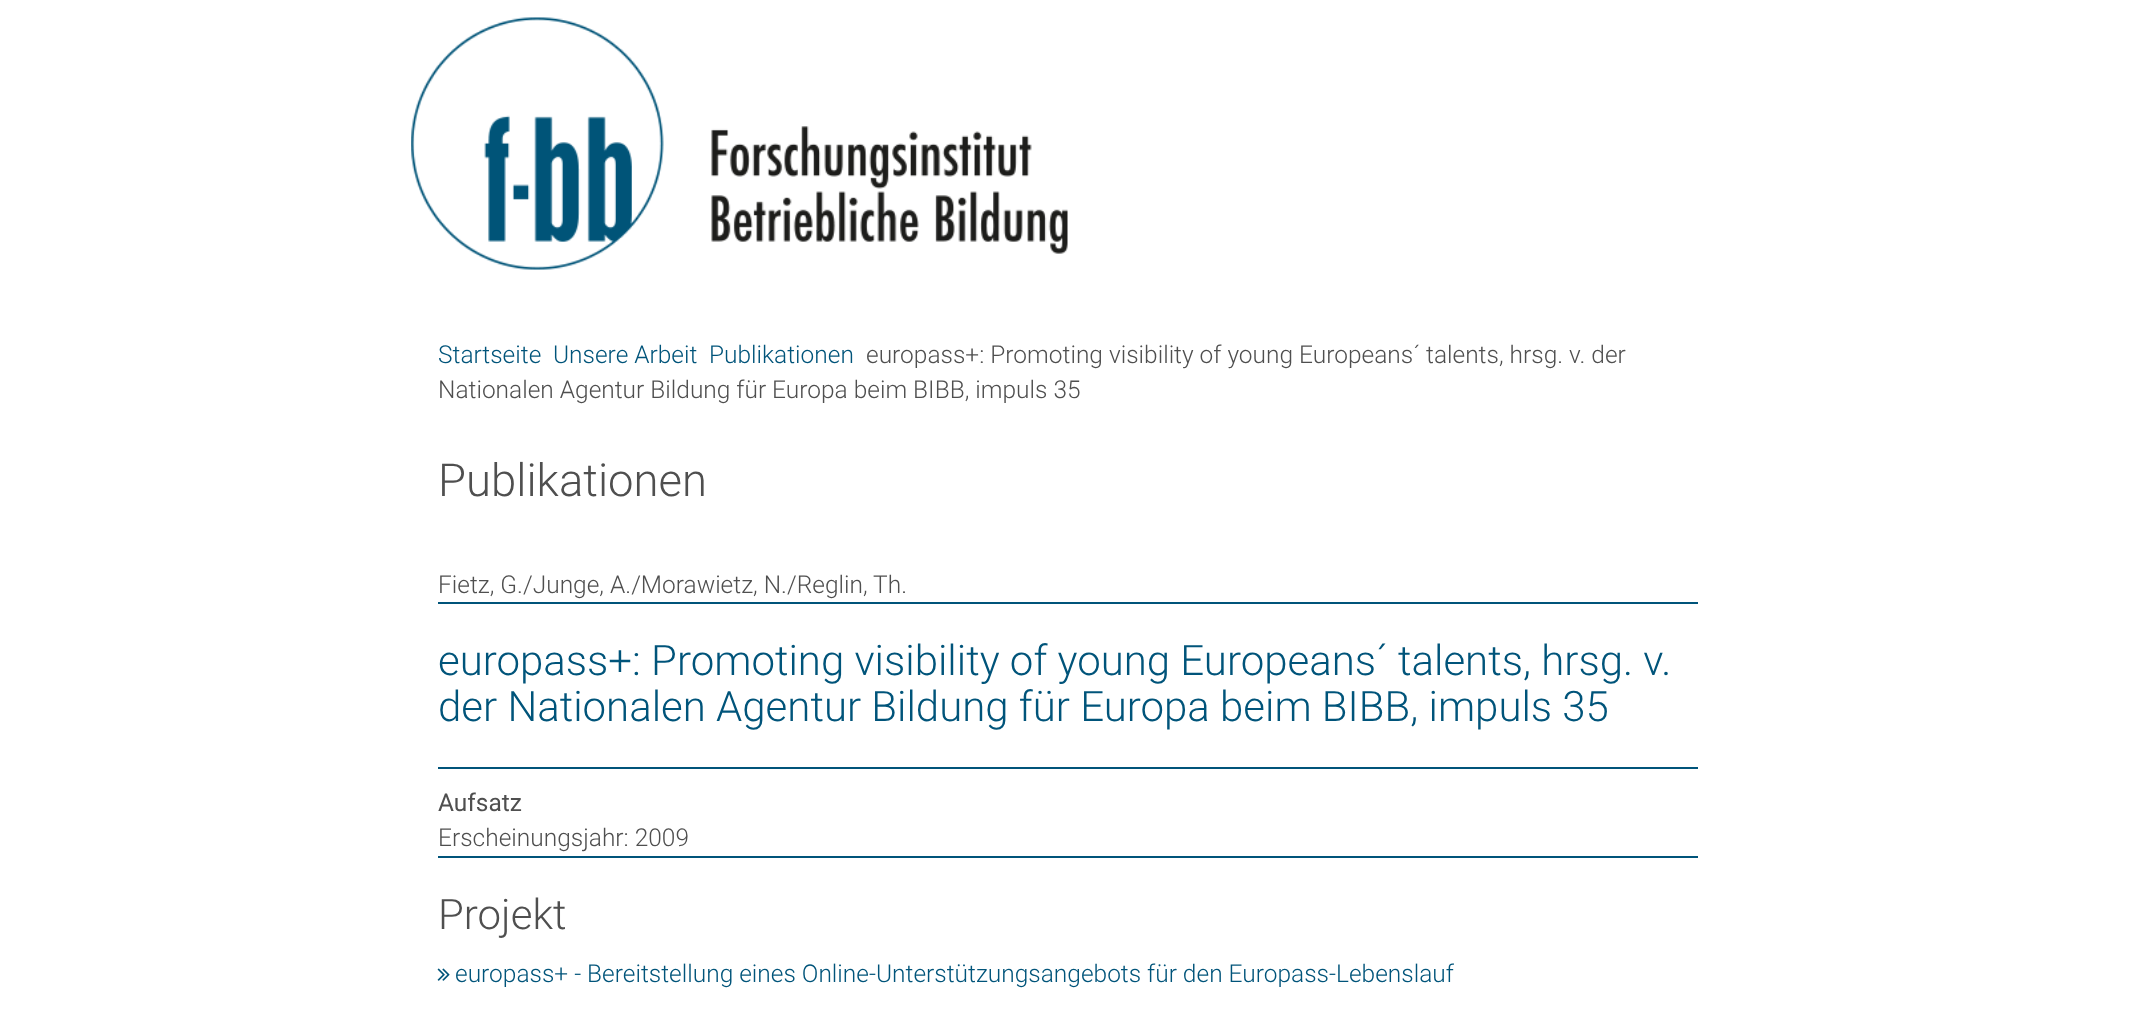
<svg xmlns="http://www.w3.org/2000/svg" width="2134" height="1028">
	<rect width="100%" height="100%" fill="#FFFFFF" />
	<image x="411" y="17" width="657" height="253" href="assets/img1.png" />
	<g font-family="Roboto" font-size="24.5" font-weight="300" fill="#00547A">
		<text x="438" y="363">Startseite</text>
		<text x="553" y="363">Unsere Arbeit</text>
		<text x="709" y="363">Publikationen</text>
	</g>
	<g font-family="Roboto" font-size="24.5" font-weight="300" fill="#4F4F4F">
		<text x="866" y="363">europass+: Promoting visibility of young Europeans´ talents, hrsg. v. der</text>
		<text x="438" y="398">Nationalen Agentur Bildung für Europa beim BIBB, impuls 35</text>
	</g>
	<text x="438" y="496" font-family="Roboto" font-size="45.5" font-weight="300" fill="#4F4F4F">Publikationen</text>
	<text x="438" y="593" font-family="Roboto" font-size="24.5" font-weight="300" fill="#4F4F4F">Fietz, G./Junge, A./Morawietz, N./Reglin, Th.</text>
	<rect x="438" y="602" width="1260" height="2" fill="#00547A" />
	<rect x="438" y="767" width="1260" height="2" fill="#00547A" />
	<g font-family="Roboto" font-size="42" font-weight="300" fill="#00547A">
		<text x="438" y="675">europass+: Promoting visibility of young Europeans´ talents, hrsg. v.</text>
		<text x="438" y="721">der Nationalen Agentur Bildung für Europa beim BIBB, impuls 35</text>
	</g>
	<text x="438" y="811" font-family="Roboto" font-size="24.5" fill="#4F4F4F">Aufsatz</text>
	<text x="438" y="846" font-family="Roboto" font-size="24.5" font-weight="300" fill="#4F4F4F">Erscheinungsjahr: 2009</text>
	<rect x="438" y="856" width="1260" height="2" fill="#00547A" />
	<text x="438" y="929" font-family="Roboto" font-size="42" font-weight="300" fill="#4F4F4F">Projekt</text>
	<image x="437" y="968" width="13" height="13" href="assets/img2.png" />
	<text x="455" y="982" font-family="Roboto" font-size="24.5" font-weight="300" fill="#00547A">europass+ - Bereitstellung eines Online-Unterstützungsangebots für den Europass-Lebenslauf</text>
</svg>
